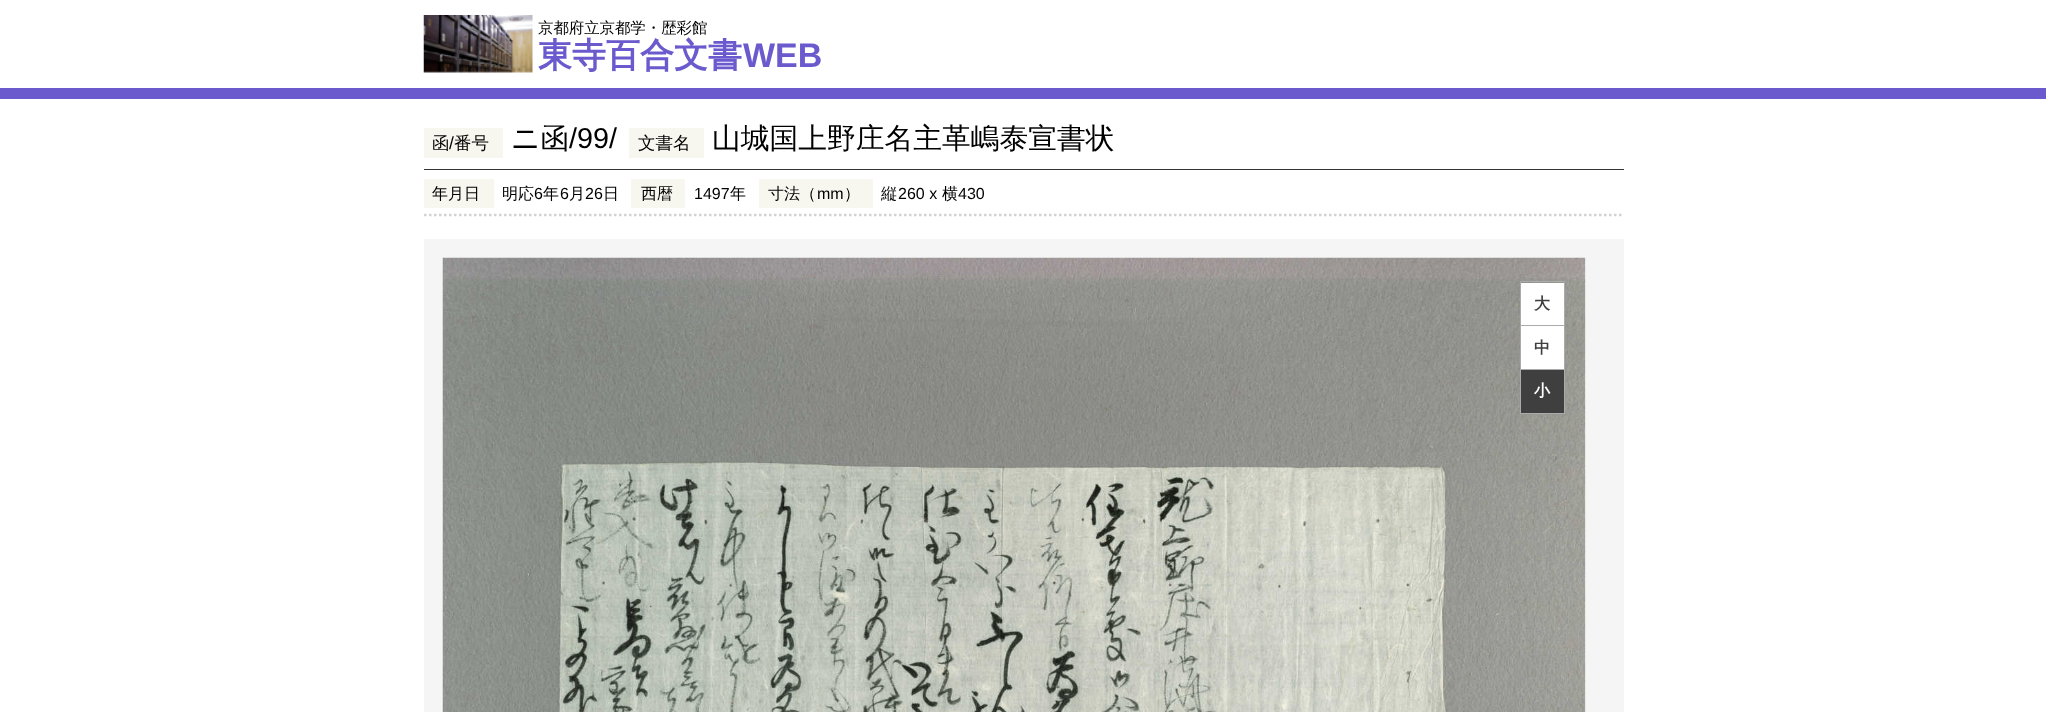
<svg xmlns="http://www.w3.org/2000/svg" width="2046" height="712">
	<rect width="100%" height="100%" fill="#FFFFFF" />
	<rect x="0" y="88" width="2046" height="11" fill="#6A5ACD" />
	<image x="423" y="15" width="110" height="58" href="assets/img1.png" />
	<text x="538" y="33" font-family="WenQuanYi Zen Hei" font-size="15.4" font-weight="500" fill="#000000">京都府立京都学・歴彩館</text>
	<text x="538" y="67" font-family="WenQuanYi Zen Hei" font-size="34" font-weight="700" fill="#6A5ACD">東寺百合文書</text>
	<text x="743" y="67" font-family="Liberation Sans" font-size="34" font-weight="700" fill="#6A5ACD">WEB</text>
	<path d="M424 215H1624" fill="none" stroke="#D2D2D2" stroke-width="2.5" stroke-dasharray="2.5 2.5" />
	<rect x="424" y="169" width="1200" height="1" fill="#343434" />
	<rect x="424" y="128" width="79" height="30" fill="#F7F7EF" />
	<text x="432" y="149" font-family="WenQuanYi Zen Hei" font-size="17.5" font-weight="500" fill="#000000">函</text>
	<text x="449" y="149" font-family="Liberation Sans" font-size="17.5" fill="#000000">/</text>
	<text x="454" y="149" font-family="WenQuanYi Zen Hei" font-size="17.5" font-weight="500" fill="#000000">番号</text>
	<text x="511" y="148" font-family="WenQuanYi Zen Hei" font-size="28.75" font-weight="500" fill="#000000">ニ函</text>
	<text x="569" y="148" font-family="Liberation Sans" font-size="28.75" fill="#000000">/99/</text>
	<rect x="629" y="128" width="75" height="30" fill="#F7F7EF" />
	<text x="638" y="149" font-family="WenQuanYi Zen Hei" font-size="17.5" font-weight="500" fill="#000000">文書名</text>
	<text x="712" y="148" font-family="WenQuanYi Zen Hei" font-size="28.75" font-weight="500" fill="#000000">山城国上野庄名主革嶋泰宣書状</text>
	<rect x="424" y="179" width="70" height="29" fill="#F7F7EF" />
	<g font-family="WenQuanYi Zen Hei" font-size="16" font-weight="500" fill="#000000">
		<text x="432" y="199">年月日</text>
		<text x="502" y="199">明応</text>
	</g>
	<text x="534" y="199" font-family="Liberation Sans" font-size="16" fill="#000000">6</text>
	<text x="543" y="199" font-family="WenQuanYi Zen Hei" font-size="16" font-weight="500" fill="#000000">年</text>
	<text x="560" y="199" font-family="Liberation Sans" font-size="16" fill="#000000">6</text>
	<text x="569" y="199" font-family="WenQuanYi Zen Hei" font-size="16" font-weight="500" fill="#000000">月</text>
	<text x="585" y="199" font-family="Liberation Sans" font-size="16" fill="#000000">26</text>
	<text x="603" y="199" font-family="WenQuanYi Zen Hei" font-size="16" font-weight="500" fill="#000000">日</text>
	<rect x="631" y="179" width="54" height="29" fill="#F7F7EF" />
	<text x="641" y="199" font-family="WenQuanYi Zen Hei" font-size="16" font-weight="500" fill="#000000">西暦</text>
	<text x="694" y="199" font-family="Liberation Sans" font-size="16" fill="#000000">1497</text>
	<text x="730" y="199" font-family="WenQuanYi Zen Hei" font-size="16" font-weight="500" fill="#000000">年</text>
	<rect x="759" y="179" width="114" height="29" fill="#F7F7EF" />
	<text x="768" y="199" font-family="WenQuanYi Zen Hei" font-size="16" font-weight="500" fill="#000000">寸法（</text>
	<text x="817" y="199" font-family="Liberation Sans" font-size="16" fill="#000000">mm</text>
	<g font-family="WenQuanYi Zen Hei" font-size="16" font-weight="500" fill="#000000">
		<text x="844" y="199">）</text>
		<text x="881" y="199">縦</text>
	</g>
	<text x="898" y="199" font-family="Liberation Sans" font-size="16" fill="#000000">260 x</text>
	<text x="942" y="199" font-family="WenQuanYi Zen Hei" font-size="16" font-weight="500" fill="#000000">横</text>
	<text x="958" y="199" font-family="Liberation Sans" font-size="16" fill="#000000">430</text>
	<rect x="424" y="239" width="1200" height="473" fill="#F5F5F5" />
	<image x="442" y="257" width="1144" height="455" href="assets/img2.png" />
	<rect x="1520" y="281" width="45" height="1" fill="#ABABAB" />
	<rect x="1564" y="281" width="1" height="133" fill="#ABABAB" />
	<rect x="1520" y="281" width="1" height="133" fill="#ABABAB" />
	<rect x="1521" y="325" width="43" height="1" fill="#ABABAB" />
	<rect x="1521" y="283" width="43" height="42" fill="#FFFFFF" />
	<text x="1534" y="309" font-family="WenQuanYi Zen Hei" font-size="16" font-weight="700" fill="#3F3F3F">大</text>
	<rect x="1521" y="369" width="43" height="1" fill="#ABABAB" />
	<rect x="1521" y="326" width="43" height="43" fill="#FFFFFF" />
	<text x="1534" y="353" font-family="WenQuanYi Zen Hei" font-size="16" font-weight="700" fill="#3F3F3F">中</text>
	<rect x="1521" y="413" width="43" height="1" fill="#ABABAB" />
	<rect x="1521" y="370" width="43" height="43" fill="#3F3F3F" />
	<text x="1534" y="396" font-family="WenQuanYi Zen Hei" font-size="16" font-weight="700" fill="#FFFFFF">小</text>
</svg>
